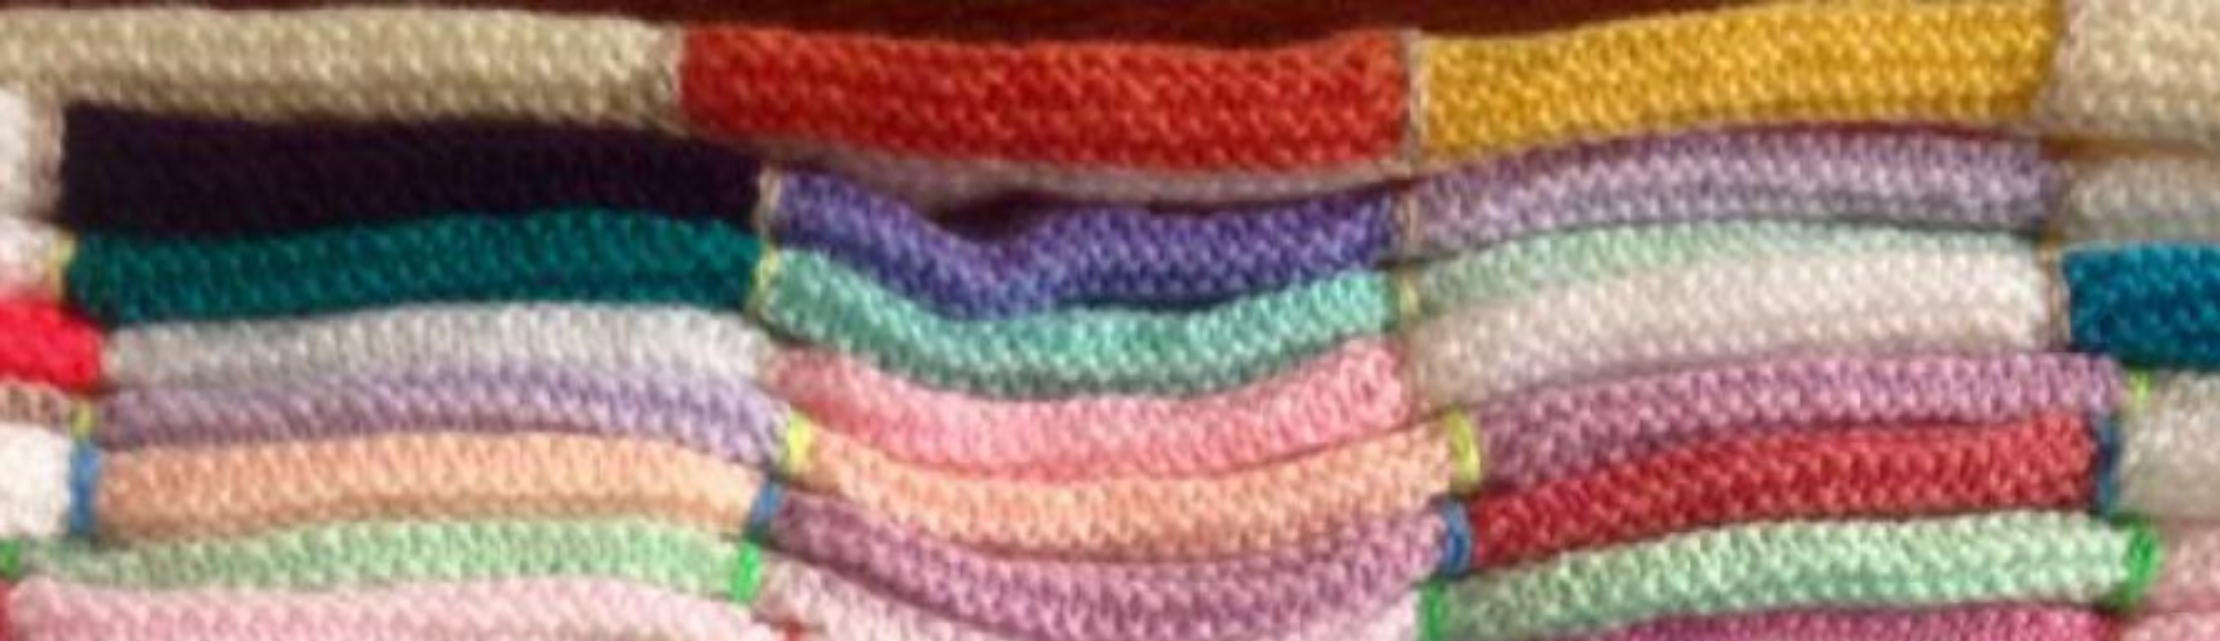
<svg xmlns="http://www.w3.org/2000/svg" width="2220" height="641">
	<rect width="100%" height="100%" fill="#FFFFFF" />
	<image x="0" y="0" width="2220" height="641" href="assets/img1.png" />
</svg>
